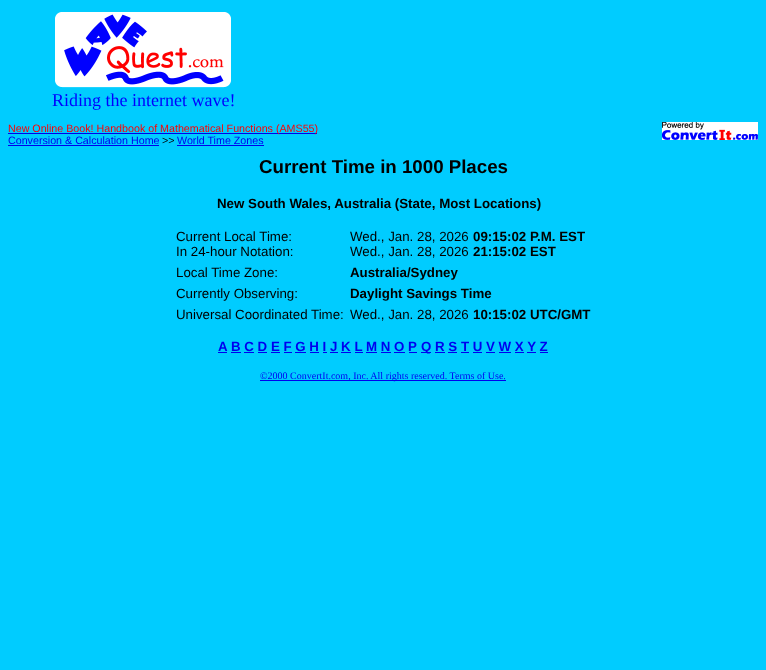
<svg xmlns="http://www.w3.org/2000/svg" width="766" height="670">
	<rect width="100%" height="100%" fill="#00CCFF" />
	<image x="55" y="12" width="176" height="76" href="assets/img1.png" />
	<text x="52" y="106" font-family="Liberation Serif" font-size="18" fill="#0000FF">Riding the internet wave!</text>
	<rect x="8" y="133" width="309" height="1" fill="#0000EE" />
	<text x="8" y="132" font-family="Liberation Sans" font-size="10.7" fill="#FF0000">New Online Book! Handbook of Mathematical Functions (AMS55)</text>
	<image x="662" y="122" width="96" height="18" href="assets/img2.png" />
	<text x="8" y="144" font-family="Liberation Sans" font-size="10.7" fill="#0000EE">Conversion &amp; Calculation Home</text>
	<rect x="8" y="145" width="151" height="1" fill="#0000EE" />
	<text x="162" y="144" font-family="Liberation Sans" font-size="10.7" fill="#000000">&gt;&gt;</text>
	<text x="177" y="144" font-family="Liberation Sans" font-size="10.7" fill="#0000EE">World Time Zones</text>
	<rect x="177" y="145" width="87" height="1" fill="#0000EE" />
	<text x="259" y="173" font-family="Liberation Sans" font-size="18.7" font-weight="700" fill="#000000">Current Time in 1000 Places</text>
	<text x="217" y="208" font-family="Liberation Sans" font-size="13.3" font-weight="700" fill="#000000">New South Wales, Australia (State, Most Locations)</text>
	<g font-family="Liberation Sans" font-size="13.3" fill="#000000">
		<text x="176" y="241">Current Local Time:</text>
		<text x="176" y="256">In 24-hour Notation:</text>
		<text x="350" y="241">Wed., Jan. 28, 2026</text>
	</g>
	<text x="473" y="241" font-family="Liberation Sans" font-size="13.3" font-weight="700" fill="#000000">09:15:02 P.M. EST</text>
	<text x="350" y="256" font-family="Liberation Sans" font-size="13.3" fill="#000000">Wed., Jan. 28, 2026</text>
	<text x="473" y="256" font-family="Liberation Sans" font-size="13.3" font-weight="700" fill="#000000">21:15:02 EST</text>
	<text x="176" y="277" font-family="Liberation Sans" font-size="13.3" fill="#000000">Local Time Zone:</text>
	<text x="350" y="277" font-family="Liberation Sans" font-size="13.3" font-weight="700" fill="#000000">Australia/Sydney</text>
	<text x="176" y="298" font-family="Liberation Sans" font-size="13.3" fill="#000000">Currently Observing:</text>
	<text x="350" y="298" font-family="Liberation Sans" font-size="13.3" font-weight="700" fill="#000000">Daylight Savings Time</text>
	<g font-family="Liberation Sans" font-size="13.3" fill="#000000">
		<text x="176" y="319">Universal Coordinated Time:</text>
		<text x="350" y="319">Wed., Jan. 28, 2026</text>
	</g>
	<text x="473" y="319" font-family="Liberation Sans" font-size="13.3" font-weight="700" fill="#000000">10:15:02 UTC/GMT</text>
	<text x="218" y="351" font-family="Liberation Sans" font-size="13.3" font-weight="700" fill="#0000EE">A</text>
	<rect x="218" y="352" width="9" height="1" fill="#0000EE" />
	<text x="231" y="351" font-family="Liberation Sans" font-size="13.3" font-weight="700" fill="#0000EE">B C D E F G H I J K L M N O P</text>
	<rect x="231" y="352" width="10" height="1" fill="#0000EE" />
	<rect x="421" y="352" width="10" height="1" fill="#0000EE" />
	<text x="421" y="351" font-family="Liberation Sans" font-size="13.3" font-weight="700" fill="#0000EE">Q R S T U V W X Y Z</text>
	<rect x="244" y="352" width="10" height="1" fill="#0000EE" />
	<rect x="258" y="352" width="9" height="1" fill="#0000EE" />
	<rect x="271" y="352" width="9" height="1" fill="#0000EE" />
	<rect x="284" y="352" width="8" height="1" fill="#0000EE" />
	<rect x="295" y="352" width="11" height="1" fill="#0000EE" />
	<rect x="310" y="352" width="9" height="1" fill="#0000EE" />
	<rect x="323" y="352" width="4" height="1" fill="#0000EE" />
	<rect x="330" y="352" width="8" height="1" fill="#0000EE" />
	<rect x="341" y="352" width="10" height="1" fill="#0000EE" />
	<rect x="355" y="352" width="8" height="1" fill="#0000EE" />
	<rect x="366" y="352" width="11" height="1" fill="#0000EE" />
	<rect x="381" y="352" width="10" height="1" fill="#0000EE" />
	<rect x="394" y="352" width="11" height="1" fill="#0000EE" />
	<rect x="409" y="352" width="8" height="1" fill="#0000EE" />
	<rect x="435" y="352" width="10" height="1" fill="#0000EE" />
	<rect x="448" y="352" width="9" height="1" fill="#0000EE" />
	<rect x="461" y="352" width="8" height="1" fill="#0000EE" />
	<rect x="473" y="352" width="9" height="1" fill="#0000EE" />
	<rect x="486" y="352" width="9" height="1" fill="#0000EE" />
	<rect x="499" y="352" width="12" height="1" fill="#0000EE" />
	<rect x="515" y="352" width="9" height="1" fill="#0000EE" />
	<rect x="527" y="352" width="9" height="1" fill="#0000EE" />
	<rect x="540" y="352" width="8" height="1" fill="#0000EE" />
	<rect x="260" y="380" width="246" height="1" fill="#0000EE" />
	<text x="260" y="379" font-family="Liberation Serif" font-size="10" fill="#0000EE">©2000 ConvertIt.com, Inc. All rights reserved. Terms of Use.</text>
</svg>
